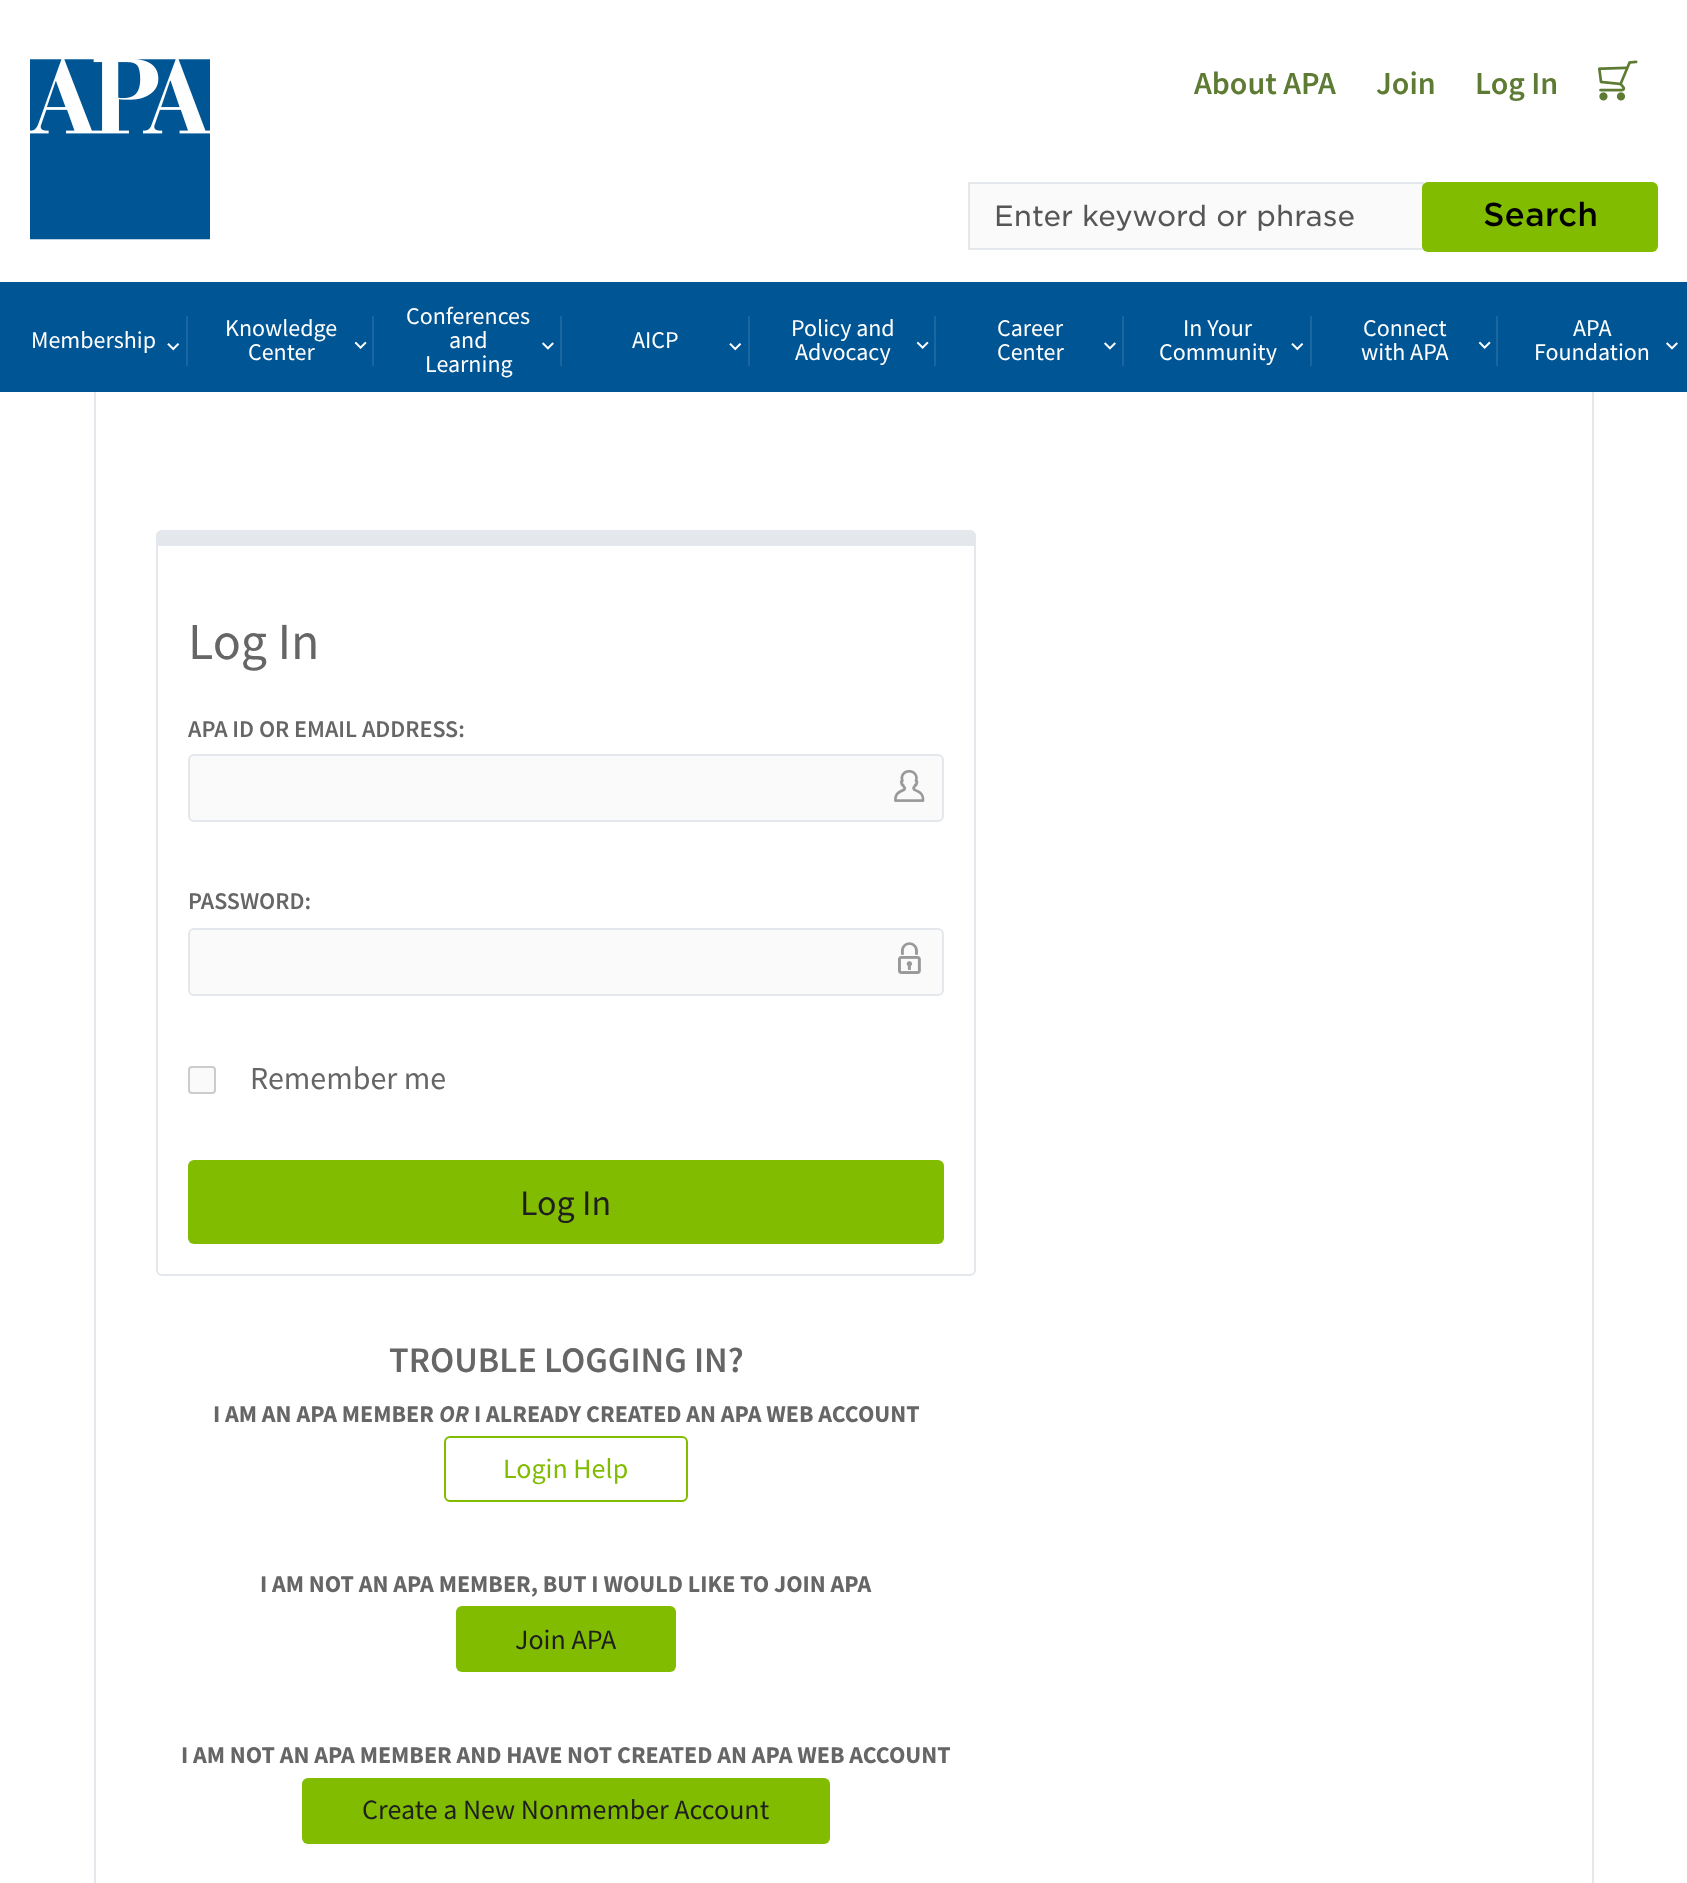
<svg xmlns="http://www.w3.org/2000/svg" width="1687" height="1883">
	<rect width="100%" height="100%" fill="#FFFFFF" />
	<image x="30" y="59" width="180" height="181" href="assets/img1.png" />
	<g font-family="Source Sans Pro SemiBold" font-size="32" font-weight="600" fill="#5D7B33">
		<text x="1194" y="94">About APA</text>
		<text x="1376" y="94">Join</text>
		<text x="1475" y="94">Log In</text>
	</g>
	<image x="1598" y="60" width="40" height="41" href="assets/img2.png" />
	<rect x="969" y="183" width="454" height="66" fill="#FAFAFA" stroke="#E4E7EB" stroke-width="2" />
	<text x="994" y="226" font-family="'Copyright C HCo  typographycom'" font-size="28" font-weight="300" fill="#565656">Enter keyword or phrase</text>
	<rect x="1422" y="182" width="236" height="70" rx="6" fill="#81BC00" />
	<text x="1483" y="226" font-family="'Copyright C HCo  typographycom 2'" font-size="32" font-weight="300" fill="#000000">Search</text>
	<rect x="0" y="282" width="1687" height="110" fill="#005595" />
	<text x="31" y="348" font-family="Source Sans Pro" font-size="24" fill="#FFFFFF">Membership</text>
	<image x="167" y="343" width="13" height="8" href="assets/img3.png" />
	<rect x="186" y="316" width="2" height="50" fill="#1A66A0" />
	<g font-family="Source Sans Pro" font-size="24" fill="#FFFFFF">
		<text x="225" y="336">Knowledge</text>
		<text x="248" y="360">Center</text>
	</g>
	<image x="354" y="341" width="13" height="8" href="assets/img4.png" />
	<rect x="372" y="316" width="2" height="50" fill="#1A66A0" />
	<g font-family="Source Sans Pro" font-size="24" fill="#FFFFFF">
		<text x="406" y="324">Conferences</text>
		<text x="449" y="348">and</text>
	</g>
	<image x="542" y="342" width="12" height="8" href="assets/img5.png" />
	<text x="425" y="372" font-family="Source Sans Pro" font-size="24" fill="#FFFFFF">Learning</text>
	<rect x="560" y="316" width="2" height="50" fill="#1A66A0" />
	<text x="632" y="348" font-family="Source Sans Pro" font-size="24" fill="#FFFFFF">AICP</text>
	<image x="729" y="343" width="13" height="8" href="assets/img6.png" />
	<rect x="748" y="316" width="2" height="50" fill="#1A66A0" />
	<g font-family="Source Sans Pro" font-size="24" fill="#FFFFFF">
		<text x="791" y="336">Policy and</text>
		<text x="795" y="360">Advocacy</text>
	</g>
	<image x="916" y="341" width="13" height="8" href="assets/img7.png" />
	<rect x="934" y="316" width="2" height="50" fill="#1A66A0" />
	<g font-family="Source Sans Pro" font-size="24" fill="#FFFFFF">
		<text x="997" y="336">Career</text>
		<text x="997" y="360">Center</text>
	</g>
	<image x="1104" y="342" width="12" height="8" href="assets/img8.png" />
	<rect x="1122" y="316" width="2" height="50" fill="#1A66A0" />
	<g font-family="Source Sans Pro" font-size="24" fill="#FFFFFF">
		<text x="1183" y="336">In Your</text>
		<text x="1159" y="360">Community</text>
	</g>
	<image x="1291" y="343" width="13" height="8" href="assets/img9.png" />
	<rect x="1310" y="316" width="2" height="50" fill="#1A66A0" />
	<g font-family="Source Sans Pro" font-size="24" fill="#FFFFFF">
		<text x="1363" y="336">Connect</text>
		<text x="1361" y="360">with APA</text>
	</g>
	<image x="1478" y="341" width="13" height="8" href="assets/img10.png" />
	<rect x="1496" y="316" width="2" height="50" fill="#1A66A0" />
	<g font-family="Source Sans Pro" font-size="24" fill="#FFFFFF">
		<text x="1573" y="336">APA</text>
		<text x="1534" y="360">Foundation</text>
	</g>
	<image x="1666" y="342" width="12" height="8" href="assets/img11.png" />
	<rect x="1592" y="392" width="2" height="1491" fill="#E4E7EB" />
	<rect x="94" y="392" width="2" height="1491" fill="#E4E7EB" />
	<rect x="157" y="533" width="818" height="742" rx="5" fill="none" stroke="#E4E7EB" stroke-width="2" />
	<path d="M162 530H970C973.5 530 976 532.5 976 536V546H156V536C156 532.5 158.5 530 162 530Z" fill="#E4E7EB" />
	<text x="188" y="659" font-family="Source Sans Pro" font-size="52" fill="#666666">Log In</text>
	<text x="188" y="737" font-family="Source Sans Pro SemiBold" font-size="24" font-weight="600" fill="#666666">APA ID OR EMAIL ADDRESS:</text>
	<rect x="189" y="755" width="754" height="66" rx="5" fill="#FAFAFA" stroke="#E4E7EB" stroke-width="2" />
	<image x="894" y="770" width="31" height="32" href="assets/img12.png" />
	<text x="188" y="909" font-family="Source Sans Pro SemiBold" font-size="24" font-weight="600" fill="#666666">PASSWORD:</text>
	<rect x="189" y="929" width="754" height="66" rx="5" fill="#FAFAFA" stroke="#E4E7EB" stroke-width="2" />
	<image x="898" y="942" width="23" height="32" href="assets/img13.png" />
	<rect x="189" y="1067" width="26" height="26" rx="3" fill="#FAFAFA" stroke="#CCCCCC" stroke-width="2" />
	<text x="250" y="1089" font-family="Source Sans Pro" font-size="32" fill="#666666">Remember me</text>
	<rect x="188" y="1160" width="756" height="84" rx="6" fill="#81BC00" />
	<text x="520" y="1215" font-family="Source Sans Pro" font-size="36" fill="#1F1F1F">Log In</text>
	<text x="389" y="1372" font-family="Source Sans Pro SemiBold" font-size="36" font-weight="600" fill="#666666">TROUBLE LOGGING IN?</text>
	<text x="213" y="1422" font-family="Source Sans Pro" font-size="24" font-weight="700" fill="#666666">I AM AN APA MEMBER</text>
	<text x="439" y="1422" font-family="Source Sans Pro" font-size="24" font-weight="700" font-style="italic" fill="#666666">OR</text>
	<text x="474" y="1422" font-family="Source Sans Pro" font-size="24" font-weight="700" fill="#666666">I ALREADY CREATED AN APA WEB ACCOUNT</text>
	<rect x="445" y="1437" width="242" height="64" rx="5" fill="none" stroke="#81BC00" stroke-width="2" />
	<text x="503" y="1478" font-family="Source Sans Pro" font-size="28" fill="#81BC00">Login Help</text>
	<text x="260" y="1592" font-family="Source Sans Pro" font-size="24" font-weight="700" fill="#666666">I AM NOT AN APA MEMBER, BUT I WOULD LIKE TO JOIN APA</text>
	<rect x="456" y="1606" width="220" height="66" rx="6" fill="#81BC00" />
	<text x="515" y="1649" font-family="Source Sans Pro" font-size="28" fill="#1F1F1F">Join APA</text>
	<text x="181" y="1763" font-family="Source Sans Pro" font-size="24" font-weight="700" fill="#666666">I AM NOT AN APA MEMBER AND HAVE NOT CREATED AN APA WEB ACCOUNT</text>
	<rect x="302" y="1778" width="528" height="66" rx="6" fill="#81BC00" />
	<text x="362" y="1819" font-family="Source Sans Pro" font-size="28" fill="#1F1F1F">Create a New Nonmember Account</text>
</svg>
